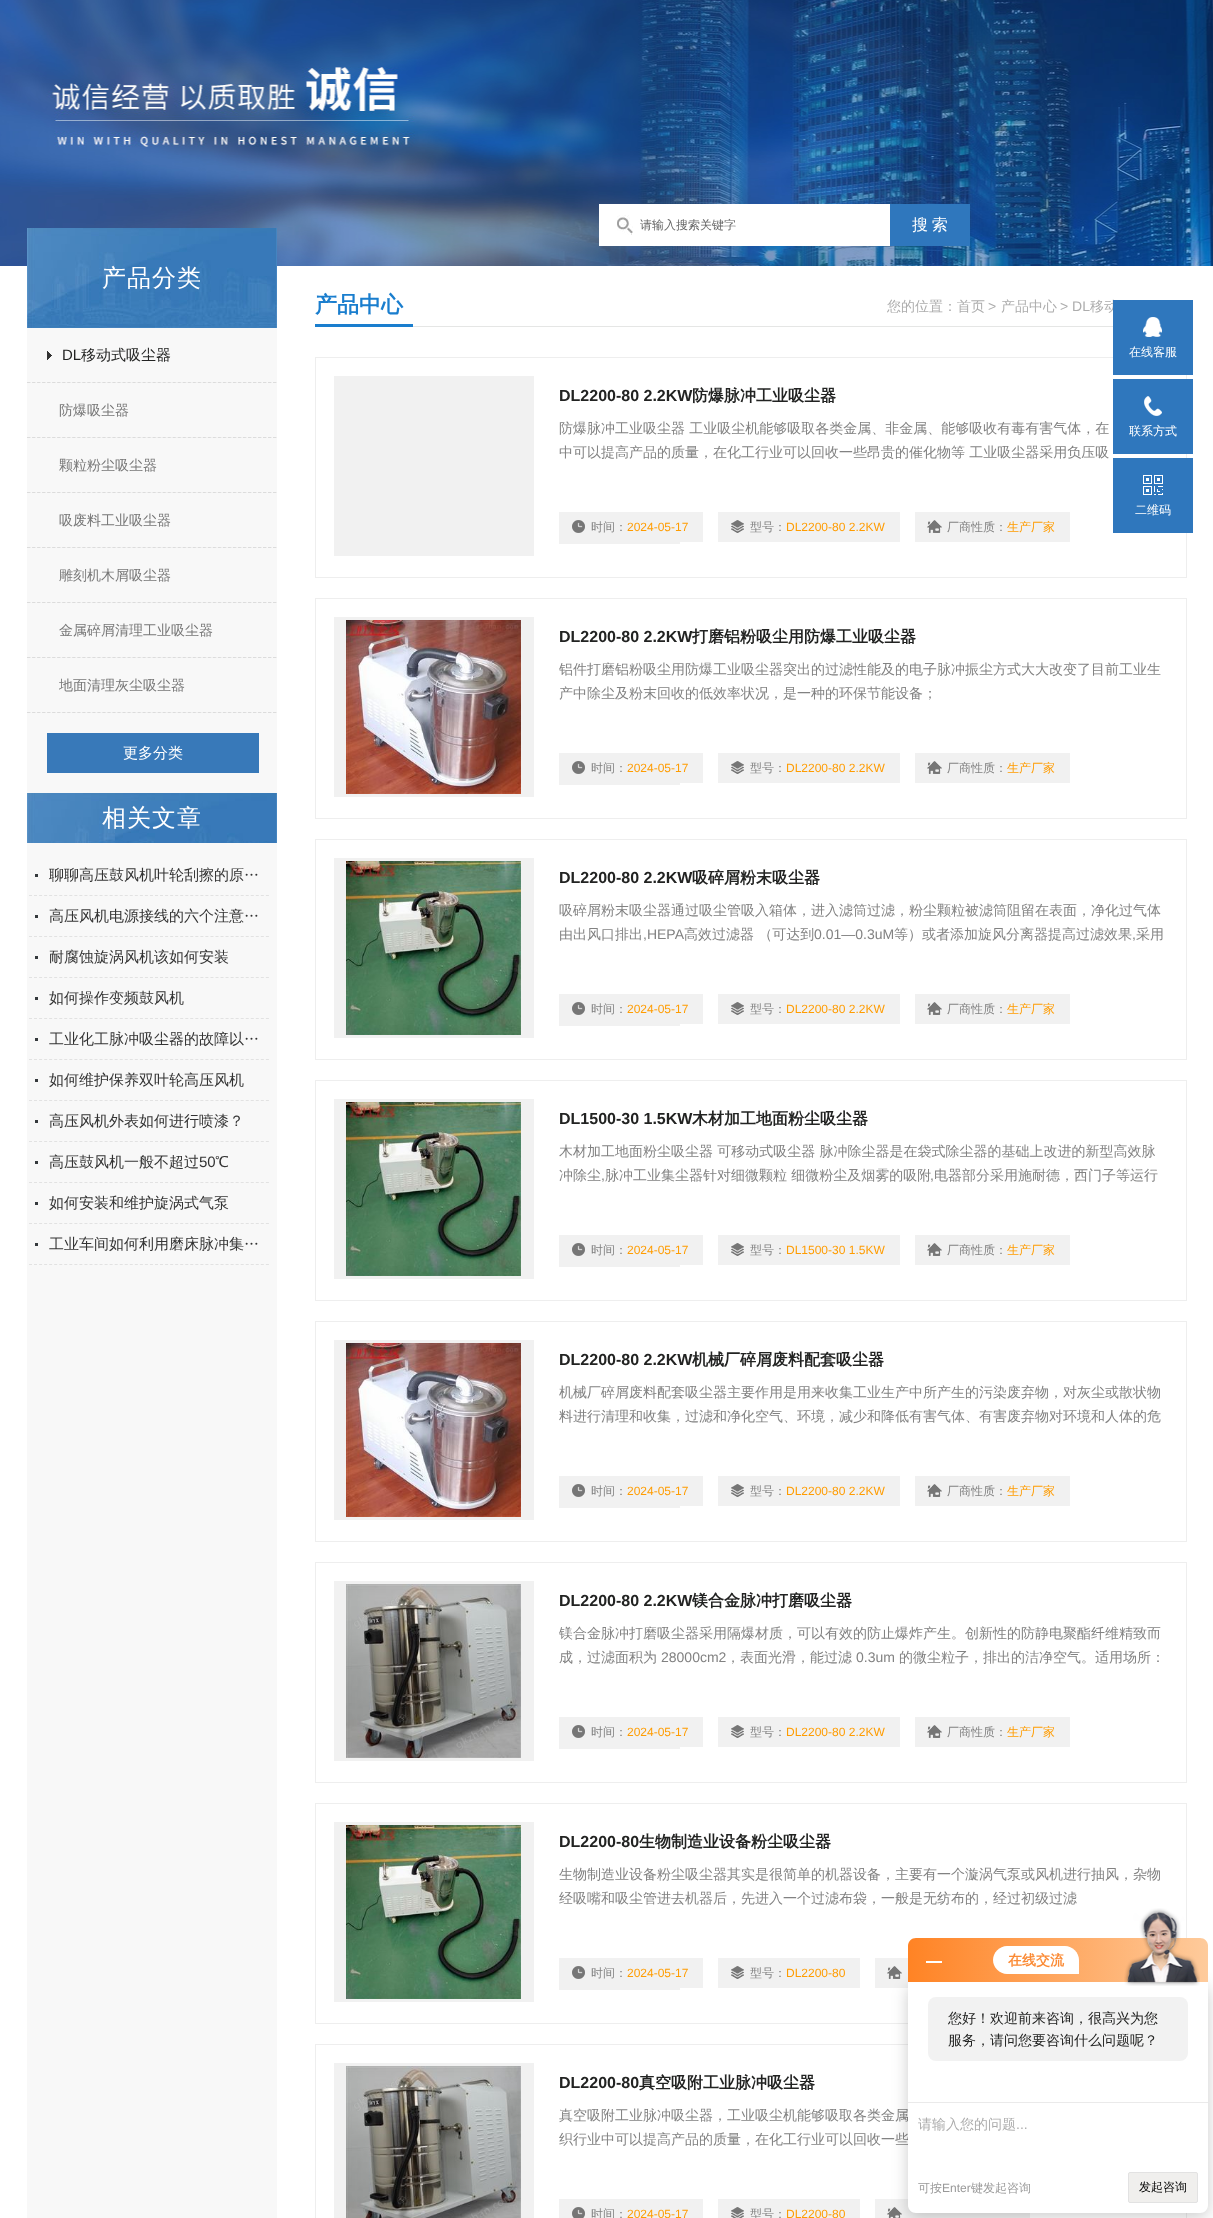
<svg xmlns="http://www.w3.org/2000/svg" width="1213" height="2218">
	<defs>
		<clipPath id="clip1"><rect x="49" y="855" width="220" height="40" /></clipPath>
		<linearGradient id="g1" gradientUnits="userSpaceOnUse" x1="908" y1="1960" x2="1208" y2="1960"><stop offset="0" stop-color="#FF8324" /><stop offset="1" stop-color="#FECB9C" /></linearGradient>
	</defs>
	<rect width="100%" height="100%" fill="#FFFFFF" />
	<image x="0" y="0" width="1213" height="266" href="assets/img1.png" />
	<rect x="599" y="204" width="291" height="42" fill="#FFFFFF" />
	<image x="617" y="215" width="16" height="20" href="assets/img2.png" />
	<text x="640" y="229" font-family="WenQuanYi Zen Hei" font-size="12" font-weight="500" fill="#666666">请输入搜索关键字</text>
	<rect x="890" y="204" width="80" height="42" fill="#2F77BD" />
	<text x="912" y="230" word-spacing="-1" font-family="WenQuanYi Zen Hei" font-size="16" font-weight="500" fill="#FFFFFF">搜 索</text>
	<rect x="27" y="328" width="250" height="1890" fill="#F8F8F8" />
	<image x="27" y="228" width="250" height="100" href="assets/img3.png" />
	<text x="102" y="286" font-family="WenQuanYi Zen Hei" font-size="24" font-weight="500" letter-spacing="1" fill="#FFFFFF">产品分类</text>
	<image x="27" y="382" width="250" height="1" href="assets/img4.png" />
	<image x="47" y="351" width="5" height="9" href="assets/img5.png" />
	<text x="62" y="360" font-family="Liberation Sans" font-size="15" fill="#222322">DL</text>
	<text x="81" y="360" font-family="WenQuanYi Zen Hei" font-size="15" font-weight="500" fill="#222322">移动式吸尘器</text>
	<image x="27" y="437" width="250" height="1" href="assets/img4.png" />
	<text x="59" y="415" font-family="WenQuanYi Zen Hei" font-size="14" font-weight="500" fill="#777777">防爆吸尘器</text>
	<image x="27" y="492" width="250" height="1" href="assets/img4.png" />
	<text x="59" y="470" font-family="WenQuanYi Zen Hei" font-size="14" font-weight="500" fill="#777777">颗粒粉尘吸尘器</text>
	<image x="27" y="547" width="250" height="1" href="assets/img4.png" />
	<text x="59" y="525" font-family="WenQuanYi Zen Hei" font-size="14" font-weight="500" fill="#777777">吸废料工业吸尘器</text>
	<image x="27" y="602" width="250" height="1" href="assets/img4.png" />
	<text x="59" y="580" font-family="WenQuanYi Zen Hei" font-size="14" font-weight="500" fill="#777777">雕刻机木屑吸尘器</text>
	<image x="27" y="657" width="250" height="1" href="assets/img4.png" />
	<text x="59" y="635" font-family="WenQuanYi Zen Hei" font-size="14" font-weight="500" fill="#777777">金属碎屑清理工业吸尘器</text>
	<image x="27" y="712" width="250" height="1" href="assets/img4.png" />
	<text x="59" y="690" font-family="WenQuanYi Zen Hei" font-size="14" font-weight="500" fill="#777777">地面清理灰尘吸尘器</text>
	<rect x="47" y="733" width="212" height="40" fill="#3879B9" />
	<text x="123" y="758" font-family="WenQuanYi Zen Hei" font-size="15" font-weight="500" fill="#FFFFFF">更多分类</text>
	<image x="27" y="793" width="250" height="50" href="assets/img6.png" />
	<text x="102" y="826" font-family="WenQuanYi Zen Hei" font-size="24" font-weight="500" letter-spacing="1" fill="#FFFFFF">相关文章</text>
	<rect x="35" y="874" width="3" height="3" fill="#35393C" />
	<path d="M29 895.5H269" fill="none" stroke="#E2E2E2" stroke-dasharray="3 2.04" />
	<g clip-path="url(#clip1)">
		<text x="49" y="880" font-family="WenQuanYi Zen Hei" font-size="15" font-weight="500" fill="#333333">聊聊高压鼓风机叶轮刮擦的原…</text>
	</g>
	<rect x="35" y="915" width="3" height="3" fill="#35393C" />
	<path d="M29 936.5H269" fill="none" stroke="#E2E2E2" stroke-dasharray="3 2.04" />
	<text x="49" y="921" font-family="WenQuanYi Zen Hei" font-size="15" font-weight="500" fill="#333333">高压风机电源接线的六个注意…</text>
	<rect x="35" y="956" width="3" height="3" fill="#35393C" />
	<path d="M29 977.5H269" fill="none" stroke="#E2E2E2" stroke-dasharray="3 2.04" />
	<text x="49" y="962" font-family="WenQuanYi Zen Hei" font-size="15" font-weight="500" fill="#333333">耐腐蚀旋涡风机该如何安装</text>
	<rect x="35" y="997" width="3" height="3" fill="#35393C" />
	<path d="M29 1018.5H269" fill="none" stroke="#E2E2E2" stroke-dasharray="3 2.04" />
	<text x="49" y="1003" font-family="WenQuanYi Zen Hei" font-size="15" font-weight="500" fill="#333333">如何操作变频鼓风机</text>
	<rect x="35" y="1038" width="3" height="3" fill="#35393C" />
	<path d="M29 1059.5H269" fill="none" stroke="#E2E2E2" stroke-dasharray="3 2.04" />
	<text x="49" y="1044" font-family="WenQuanYi Zen Hei" font-size="15" font-weight="500" fill="#333333">工业化工脉冲吸尘器的故障以…</text>
	<rect x="35" y="1079" width="3" height="3" fill="#35393C" />
	<path d="M29 1100.5H269" fill="none" stroke="#E2E2E2" stroke-dasharray="3 2.04" />
	<text x="49" y="1085" font-family="WenQuanYi Zen Hei" font-size="15" font-weight="500" fill="#333333">如何维护保养双叶轮高压风机</text>
	<rect x="35" y="1120" width="3" height="3" fill="#35393C" />
	<path d="M29 1141.5H269" fill="none" stroke="#E2E2E2" stroke-dasharray="3 2.04" />
	<text x="49" y="1126" font-family="WenQuanYi Zen Hei" font-size="15" font-weight="500" fill="#333333">高压风机外表如何进行喷漆？</text>
	<rect x="35" y="1161" width="3" height="3" fill="#35393C" />
	<path d="M29 1182.5H269" fill="none" stroke="#E2E2E2" stroke-dasharray="3 2.04" />
	<text x="49" y="1167" font-family="WenQuanYi Zen Hei" font-size="15" font-weight="500" fill="#333333">高压鼓风机一般不超过</text>
	<text x="199" y="1167" font-family="Liberation Sans" font-size="15" fill="#333333">50</text>
	<text x="215" y="1167" font-family="WenQuanYi Zen Hei" font-size="15" font-weight="500" fill="#333333">℃</text>
	<rect x="35" y="1202" width="3" height="3" fill="#35393C" />
	<path d="M29 1223.5H269" fill="none" stroke="#E2E2E2" stroke-dasharray="3 2.04" />
	<text x="49" y="1208" font-family="WenQuanYi Zen Hei" font-size="15" font-weight="500" fill="#333333">如何安装和维护旋涡式气泵</text>
	<rect x="35" y="1243" width="3" height="3" fill="#35393C" />
	<path d="M29 1264.5H269" fill="none" stroke="#E2E2E2" stroke-dasharray="3 2.04" />
	<text x="49" y="1249" font-family="WenQuanYi Zen Hei" font-size="15" font-weight="500" fill="#333333">工业车间如何利用磨床脉冲集…</text>
	<rect x="413" y="326" width="700" height="1" fill="#E5E6E5" />
	<rect x="315" y="324" width="98" height="3" fill="#1A7ECE" />
	<text x="315" y="312" font-family="WenQuanYi Zen Hei" font-size="22" font-weight="700" fill="#1A7ECE">产品中心</text>
	<text x="887" y="311" font-family="WenQuanYi Zen Hei" font-size="14" font-weight="500" fill="#ADADAD">您的位置：首页</text>
	<text x="988" y="311" font-family="Liberation Sans" font-size="14" fill="#ADADAD">&gt;</text>
	<text x="1001" y="311" font-family="WenQuanYi Zen Hei" font-size="14" font-weight="500" fill="#ADADAD">产品中心</text>
	<text x="1060" y="311" font-family="Liberation Sans" font-size="14" fill="#ADADAD">&gt; DL</text>
	<text x="1090" y="311" font-family="WenQuanYi Zen Hei" font-size="14" font-weight="500" fill="#ADADAD">移动</text>
	<rect x="315.5" y="357.5" width="871" height="220" fill="none" stroke="#EEEEEE" />
	<rect x="334" y="376" width="200" height="180" fill="#F1F1F1" />
	<text x="559" y="401" font-family="Liberation Sans" font-size="16" font-weight="700" fill="#222322">DL2200-80 2.2KW</text>
	<text x="692" y="401" font-family="WenQuanYi Zen Hei" font-size="16" font-weight="700" fill="#222322">防爆脉冲工业吸尘器</text>
	<g font-family="WenQuanYi Zen Hei" font-size="14" font-weight="500" fill="#828282">
		<text x="559" y="433">防爆脉冲工业吸尘器 工业吸尘机能够吸取各类金属、非金属、能够吸收有毒有害气体，在</text>
		<text x="559" y="457">中可以提高产品的质量，在化工行业可以回收一些昂贵的催化物等 工业吸尘器采用负压吸</text>
	</g>
	<rect x="559" y="512" width="144" height="30" fill="#F1F1F1" />
	<image x="572" y="520" width="13" height="13" href="assets/img7.png" />
	<text x="591" y="531" font-family="WenQuanYi Zen Hei" font-size="12" font-weight="500" fill="#828282">时间：</text>
	<text x="627" y="531" font-family="Liberation Sans" font-size="12" fill="#FF9C00">2024-05-17</text>
	<rect x="718" y="512" width="182" height="30" fill="#F1F1F1" />
	<image x="731" y="520" width="13" height="13" href="assets/img8.png" />
	<text x="750" y="531" font-family="WenQuanYi Zen Hei" font-size="12" font-weight="500" fill="#828282">型号：</text>
	<text x="786" y="531" font-family="Liberation Sans" font-size="12" fill="#FF9C00">DL2200-80 2.2KW</text>
	<rect x="915" y="512" width="155" height="30" fill="#F1F1F1" />
	<image x="927" y="520" width="15" height="13" href="assets/img9.png" />
	<text x="947" y="531" font-family="WenQuanYi Zen Hei" font-size="12" font-weight="500" fill="#828282">厂商性质：</text>
	<text x="1007" y="531" font-family="WenQuanYi Zen Hei" font-size="12" font-weight="500" fill="#FF9C00">生产厂家</text>
	<rect x="559" y="542" width="121" height="2" fill="#F1F1F1" />
	<rect x="315.5" y="598.5" width="871" height="220" fill="none" stroke="#EEEEEE" />
	<rect x="334" y="617" width="200" height="180" fill="#F1F1F1" />
	<image x="346" y="620" width="175" height="174" href="assets/img10.png" />
	<text x="559" y="642" font-family="Liberation Sans" font-size="16" font-weight="700" fill="#222322">DL2200-80 2.2KW</text>
	<text x="692" y="642" font-family="WenQuanYi Zen Hei" font-size="16" font-weight="700" fill="#222322">打磨铝粉吸尘用防爆工业吸尘器</text>
	<g font-family="WenQuanYi Zen Hei" font-size="14" font-weight="500" fill="#828282">
		<text x="559" y="674">铝件打磨铝粉吸尘用防爆工业吸尘器突出的过滤性能及的电子脉冲振尘方式大大改变了目前工业生</text>
		<text x="559" y="698">产中除尘及粉末回收的低效率状况，是一种的环保节能设备；</text>
	</g>
	<rect x="559" y="753" width="144" height="30" fill="#F1F1F1" />
	<image x="572" y="761" width="13" height="13" href="assets/img7.png" />
	<text x="591" y="772" font-family="WenQuanYi Zen Hei" font-size="12" font-weight="500" fill="#828282">时间：</text>
	<text x="627" y="772" font-family="Liberation Sans" font-size="12" fill="#FF9C00">2024-05-17</text>
	<rect x="718" y="753" width="182" height="30" fill="#F1F1F1" />
	<image x="731" y="761" width="13" height="13" href="assets/img8.png" />
	<text x="750" y="772" font-family="WenQuanYi Zen Hei" font-size="12" font-weight="500" fill="#828282">型号：</text>
	<text x="786" y="772" font-family="Liberation Sans" font-size="12" fill="#FF9C00">DL2200-80 2.2KW</text>
	<rect x="915" y="753" width="155" height="30" fill="#F1F1F1" />
	<image x="927" y="761" width="15" height="13" href="assets/img9.png" />
	<text x="947" y="772" font-family="WenQuanYi Zen Hei" font-size="12" font-weight="500" fill="#828282">厂商性质：</text>
	<text x="1007" y="772" font-family="WenQuanYi Zen Hei" font-size="12" font-weight="500" fill="#FF9C00">生产厂家</text>
	<rect x="559" y="783" width="121" height="2" fill="#F1F1F1" />
	<rect x="315.5" y="839.5" width="871" height="220" fill="none" stroke="#EEEEEE" />
	<rect x="334" y="858" width="200" height="180" fill="#F1F1F1" />
	<image x="346" y="861" width="175" height="174" href="assets/img11.png" />
	<text x="559" y="883" font-family="Liberation Sans" font-size="16" font-weight="700" fill="#222322">DL2200-80 2.2KW</text>
	<text x="692" y="883" font-family="WenQuanYi Zen Hei" font-size="16" font-weight="700" fill="#222322">吸碎屑粉末吸尘器</text>
	<g font-family="WenQuanYi Zen Hei" font-size="14" font-weight="500" fill="#828282">
		<text x="559" y="915">吸碎屑粉末吸尘器通过吸尘管吸入箱体，进入滤筒过滤，粉尘颗粒被滤筒阻留在表面，净化过气体</text>
		<text x="559" y="939">由出风口排出</text>
	</g>
	<text x="643" y="939" font-family="Liberation Sans" font-size="14" fill="#828282">,HEPA</text>
	<text x="684" y="939" font-family="WenQuanYi Zen Hei" font-size="14" font-weight="500" fill="#828282">高效过滤器 （可达到</text>
	<text x="814" y="939" font-family="Liberation Sans" font-size="14" fill="#828282">0.01—0.3uM</text>
	<text x="894" y="939" font-family="WenQuanYi Zen Hei" font-size="14" font-weight="500" fill="#828282">等）或者添加旋风分离器提高过滤效果</text>
	<text x="1132" y="939" font-family="Liberation Sans" font-size="14" fill="#828282">,</text>
	<text x="1136" y="939" font-family="WenQuanYi Zen Hei" font-size="14" font-weight="500" fill="#828282">采用</text>
	<rect x="559" y="994" width="144" height="30" fill="#F1F1F1" />
	<image x="572" y="1002" width="13" height="13" href="assets/img7.png" />
	<text x="591" y="1013" font-family="WenQuanYi Zen Hei" font-size="12" font-weight="500" fill="#828282">时间：</text>
	<text x="627" y="1013" font-family="Liberation Sans" font-size="12" fill="#FF9C00">2024-05-17</text>
	<rect x="718" y="994" width="182" height="30" fill="#F1F1F1" />
	<image x="731" y="1002" width="13" height="13" href="assets/img8.png" />
	<text x="750" y="1013" font-family="WenQuanYi Zen Hei" font-size="12" font-weight="500" fill="#828282">型号：</text>
	<text x="786" y="1013" font-family="Liberation Sans" font-size="12" fill="#FF9C00">DL2200-80 2.2KW</text>
	<rect x="915" y="994" width="155" height="30" fill="#F1F1F1" />
	<image x="927" y="1002" width="15" height="13" href="assets/img9.png" />
	<text x="947" y="1013" font-family="WenQuanYi Zen Hei" font-size="12" font-weight="500" fill="#828282">厂商性质：</text>
	<text x="1007" y="1013" font-family="WenQuanYi Zen Hei" font-size="12" font-weight="500" fill="#FF9C00">生产厂家</text>
	<rect x="559" y="1024" width="121" height="2" fill="#F1F1F1" />
	<rect x="315.5" y="1080.5" width="871" height="220" fill="none" stroke="#EEEEEE" />
	<rect x="334" y="1099" width="200" height="180" fill="#F1F1F1" />
	<image x="346" y="1102" width="175" height="174" href="assets/img12.png" />
	<text x="559" y="1124" font-family="Liberation Sans" font-size="16" font-weight="700" fill="#222322">DL1500-30 1.5KW</text>
	<text x="692" y="1124" font-family="WenQuanYi Zen Hei" font-size="16" font-weight="700" fill="#222322">木材加工地面粉尘吸尘器</text>
	<g font-family="WenQuanYi Zen Hei" font-size="14" font-weight="500" fill="#828282">
		<text x="559" y="1156">木材加工地面粉尘吸尘器 可移动式吸尘器 脉冲除尘器是在袋式除尘器的基础上改进的新型高效脉</text>
		<text x="559" y="1180">冲除尘</text>
	</g>
	<text x="601" y="1180" font-family="Liberation Sans" font-size="14" fill="#828282">,</text>
	<text x="605" y="1180" font-family="WenQuanYi Zen Hei" font-size="14" font-weight="500" fill="#828282">脉冲工业集尘器针对细微颗粒 细微粉尘及烟雾的吸附</text>
	<text x="930" y="1180" font-family="Liberation Sans" font-size="14" fill="#828282">,</text>
	<text x="934" y="1180" font-family="WenQuanYi Zen Hei" font-size="14" font-weight="500" fill="#828282">电器部分采用施耐德，西门子等运行</text>
	<rect x="559" y="1235" width="144" height="30" fill="#F1F1F1" />
	<image x="572" y="1243" width="13" height="13" href="assets/img7.png" />
	<text x="591" y="1254" font-family="WenQuanYi Zen Hei" font-size="12" font-weight="500" fill="#828282">时间：</text>
	<text x="627" y="1254" font-family="Liberation Sans" font-size="12" fill="#FF9C00">2024-05-17</text>
	<rect x="718" y="1235" width="182" height="30" fill="#F1F1F1" />
	<image x="731" y="1243" width="13" height="13" href="assets/img8.png" />
	<text x="750" y="1254" font-family="WenQuanYi Zen Hei" font-size="12" font-weight="500" fill="#828282">型号：</text>
	<text x="786" y="1254" font-family="Liberation Sans" font-size="12" fill="#FF9C00">DL1500-30 1.5KW</text>
	<rect x="915" y="1235" width="155" height="30" fill="#F1F1F1" />
	<image x="927" y="1243" width="15" height="13" href="assets/img9.png" />
	<text x="947" y="1254" font-family="WenQuanYi Zen Hei" font-size="12" font-weight="500" fill="#828282">厂商性质：</text>
	<text x="1007" y="1254" font-family="WenQuanYi Zen Hei" font-size="12" font-weight="500" fill="#FF9C00">生产厂家</text>
	<rect x="559" y="1265" width="121" height="2" fill="#F1F1F1" />
	<rect x="315.5" y="1321.5" width="871" height="220" fill="none" stroke="#EEEEEE" />
	<rect x="334" y="1340" width="200" height="180" fill="#F1F1F1" />
	<image x="346" y="1343" width="175" height="174" href="assets/img13.png" />
	<text x="559" y="1365" font-family="Liberation Sans" font-size="16" font-weight="700" fill="#222322">DL2200-80 2.2KW</text>
	<text x="692" y="1365" font-family="WenQuanYi Zen Hei" font-size="16" font-weight="700" fill="#222322">机械厂碎屑废料配套吸尘器</text>
	<g font-family="WenQuanYi Zen Hei" font-size="14" font-weight="500" fill="#828282">
		<text x="559" y="1397">机械厂碎屑废料配套吸尘器主要作用是用来收集工业生产中所产生的污染废弃物，对灰尘或散状物</text>
		<text x="559" y="1421">料进行清理和收集，过滤和净化空气、环境，减少和降低有害气体、有害废弃物对环境和人体的危</text>
	</g>
	<rect x="559" y="1476" width="144" height="30" fill="#F1F1F1" />
	<image x="572" y="1484" width="13" height="13" href="assets/img7.png" />
	<text x="591" y="1495" font-family="WenQuanYi Zen Hei" font-size="12" font-weight="500" fill="#828282">时间：</text>
	<text x="627" y="1495" font-family="Liberation Sans" font-size="12" fill="#FF9C00">2024-05-17</text>
	<rect x="718" y="1476" width="182" height="30" fill="#F1F1F1" />
	<image x="731" y="1484" width="13" height="13" href="assets/img8.png" />
	<text x="750" y="1495" font-family="WenQuanYi Zen Hei" font-size="12" font-weight="500" fill="#828282">型号：</text>
	<text x="786" y="1495" font-family="Liberation Sans" font-size="12" fill="#FF9C00">DL2200-80 2.2KW</text>
	<rect x="915" y="1476" width="155" height="30" fill="#F1F1F1" />
	<image x="927" y="1484" width="15" height="13" href="assets/img9.png" />
	<text x="947" y="1495" font-family="WenQuanYi Zen Hei" font-size="12" font-weight="500" fill="#828282">厂商性质：</text>
	<text x="1007" y="1495" font-family="WenQuanYi Zen Hei" font-size="12" font-weight="500" fill="#FF9C00">生产厂家</text>
	<rect x="559" y="1506" width="121" height="2" fill="#F1F1F1" />
	<rect x="315.5" y="1562.5" width="871" height="220" fill="none" stroke="#EEEEEE" />
	<rect x="334" y="1581" width="200" height="180" fill="#F1F1F1" />
	<image x="346" y="1584" width="175" height="174" href="assets/img14.png" />
	<text x="559" y="1606" font-family="Liberation Sans" font-size="16" font-weight="700" fill="#222322">DL2200-80 2.2KW</text>
	<text x="692" y="1606" font-family="WenQuanYi Zen Hei" font-size="16" font-weight="700" fill="#222322">镁合金脉冲打磨吸尘器</text>
	<g font-family="WenQuanYi Zen Hei" font-size="14" font-weight="500" fill="#828282">
		<text x="559" y="1638">镁合金脉冲打磨吸尘器采用隔爆材质，可以有效的防止爆炸产生。创新性的防静电聚酯纤维精致而</text>
		<text x="559" y="1662">成，过滤面积为</text>
	</g>
	<text x="661" y="1662" font-family="Liberation Sans" font-size="14" fill="#828282">28000cm2</text>
	<text x="726" y="1662" font-family="WenQuanYi Zen Hei" font-size="14" font-weight="500" fill="#828282">，表面光滑，能过滤</text>
	<text x="856" y="1662" font-family="Liberation Sans" font-size="14" fill="#828282">0.3um</text>
	<text x="899" y="1662" font-family="WenQuanYi Zen Hei" font-size="14" font-weight="500" fill="#828282">的微尘粒子，排出的洁净空气。适用场所：</text>
	<rect x="559" y="1717" width="144" height="30" fill="#F1F1F1" />
	<image x="572" y="1725" width="13" height="13" href="assets/img7.png" />
	<text x="591" y="1736" font-family="WenQuanYi Zen Hei" font-size="12" font-weight="500" fill="#828282">时间：</text>
	<text x="627" y="1736" font-family="Liberation Sans" font-size="12" fill="#FF9C00">2024-05-17</text>
	<rect x="718" y="1717" width="182" height="30" fill="#F1F1F1" />
	<image x="731" y="1725" width="13" height="13" href="assets/img8.png" />
	<text x="750" y="1736" font-family="WenQuanYi Zen Hei" font-size="12" font-weight="500" fill="#828282">型号：</text>
	<text x="786" y="1736" font-family="Liberation Sans" font-size="12" fill="#FF9C00">DL2200-80 2.2KW</text>
	<rect x="915" y="1717" width="155" height="30" fill="#F1F1F1" />
	<image x="927" y="1725" width="15" height="13" href="assets/img9.png" />
	<text x="947" y="1736" font-family="WenQuanYi Zen Hei" font-size="12" font-weight="500" fill="#828282">厂商性质：</text>
	<text x="1007" y="1736" font-family="WenQuanYi Zen Hei" font-size="12" font-weight="500" fill="#FF9C00">生产厂家</text>
	<rect x="559" y="1747" width="121" height="2" fill="#F1F1F1" />
	<rect x="315.5" y="1803.5" width="871" height="220" fill="none" stroke="#EEEEEE" />
	<rect x="334" y="1822" width="200" height="180" fill="#F1F1F1" />
	<image x="346" y="1825" width="175" height="174" href="assets/img15.png" />
	<text x="559" y="1847" font-family="Liberation Sans" font-size="16" font-weight="700" fill="#222322">DL2200-80</text>
	<text x="639" y="1847" font-family="WenQuanYi Zen Hei" font-size="16" font-weight="700" fill="#222322">生物制造业设备粉尘吸尘器</text>
	<g font-family="WenQuanYi Zen Hei" font-size="14" font-weight="500" fill="#828282">
		<text x="559" y="1879">生物制造业设备粉尘吸尘器其实是很简单的机器设备，主要有一个漩涡气泵或风机进行抽风，杂物</text>
		<text x="559" y="1903">经吸嘴和吸尘管进去机器后，先进入一个过滤布袋，一般是无纺布的，经过初级过滤</text>
	</g>
	<rect x="559" y="1958" width="144" height="30" fill="#F1F1F1" />
	<image x="572" y="1966" width="13" height="13" href="assets/img7.png" />
	<text x="591" y="1977" font-family="WenQuanYi Zen Hei" font-size="12" font-weight="500" fill="#828282">时间：</text>
	<text x="627" y="1977" font-family="Liberation Sans" font-size="12" fill="#FF9C00">2024-05-17</text>
	<rect x="718" y="1958" width="142" height="30" fill="#F1F1F1" />
	<image x="731" y="1966" width="13" height="13" href="assets/img8.png" />
	<text x="750" y="1977" font-family="WenQuanYi Zen Hei" font-size="12" font-weight="500" fill="#828282">型号：</text>
	<text x="786" y="1977" font-family="Liberation Sans" font-size="12" fill="#FF9C00">DL2200-80</text>
	<rect x="875" y="1958" width="33" height="30" fill="#F1F1F1" />
	<image x="887" y="1966" width="15" height="13" href="assets/img9.png" />
	<rect x="559" y="1988" width="121" height="2" fill="#F1F1F1" />
	<rect x="315.5" y="2044.5" width="871" height="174" fill="none" stroke="#EEEEEE" />
	<rect x="334" y="2063" width="200" height="155" fill="#F1F1F1" />
	<image x="346" y="2066" width="175" height="152" href="assets/img16.png" />
	<text x="559" y="2088" font-family="Liberation Sans" font-size="16" font-weight="700" fill="#222322">DL2200-80</text>
	<text x="639" y="2088" font-family="WenQuanYi Zen Hei" font-size="16" font-weight="700" fill="#222322">真空吸附工业脉冲吸尘器</text>
	<g font-family="WenQuanYi Zen Hei" font-size="14" font-weight="500" fill="#828282">
		<text x="559" y="2120">真空吸附工业脉冲吸尘器，工业吸尘机能够吸取各类金属</text>
		<text x="559" y="2144">织行业中可以提高产品的质量，在化工行业可以回收一些</text>
	</g>
	<rect x="559" y="2199" width="144" height="19" fill="#F1F1F1" />
	<image x="572" y="2207" width="13" height="11" href="assets/img17.png" />
	<text x="591" y="2218" font-family="WenQuanYi Zen Hei" font-size="12" font-weight="500" fill="#828282">时间：</text>
	<text x="627" y="2218" font-family="Liberation Sans" font-size="12" fill="#FF9C00">2024-05-17</text>
	<rect x="718" y="2199" width="142" height="19" fill="#F1F1F1" />
	<image x="731" y="2207" width="13" height="11" href="assets/img18.png" />
	<text x="750" y="2218" font-family="WenQuanYi Zen Hei" font-size="12" font-weight="500" fill="#828282">型号：</text>
	<text x="786" y="2218" font-family="Liberation Sans" font-size="12" fill="#FF9C00">DL2200-80</text>
	<rect x="875" y="2199" width="155" height="19" fill="#F1F1F1" />
	<image x="887" y="2207" width="15" height="11" href="assets/img19.png" />
	<rect x="1113" y="300" width="80" height="75" fill="#2F77BD" />
	<image x="1143" y="317" width="19" height="20" href="assets/img20.png" />
	<text x="1129" y="356" font-family="WenQuanYi Zen Hei" font-size="12" font-weight="500" fill="#FFFFFF">在线客服</text>
	<rect x="1113" y="379" width="80" height="75" fill="#2F77BD" />
	<image x="1144" y="396" width="18" height="20" href="assets/img21.png" />
	<text x="1129" y="435" font-family="WenQuanYi Zen Hei" font-size="12" font-weight="500" fill="#FFFFFF">联系方式</text>
	<rect x="1113" y="458" width="80" height="75" fill="#2F77BD" />
	<image x="1143" y="475" width="20" height="20" href="assets/img22.png" />
	<text x="1135" y="514" font-family="WenQuanYi Zen Hei" font-size="12" font-weight="500" fill="#FFFFFF">二维码</text>
	<rect x="908" y="1986" width="300" height="231" rx="8" fill="#000000" fill-opacity="0.2" filter="blur(8px)" />
	<path d="M916 1938H1200C1204.5 1938 1208 1941.5 1208 1946V1982H908V1946C908 1941.5 911.5 1938 916 1938Z" fill="url(#g1)" />
	<rect x="926" y="1961" width="16" height="2" fill="#FFFFFF" />
	<path d="M1007 1946H1065C1072.5 1946 1079 1952.5 1079 1960V1974H1007C999.5 1974 993 1967.5 993 1960C993 1952.5 999.5 1946 1007 1946Z" fill="#FFFFFF" />
	<text x="1008" y="1965" font-family="WenQuanYi Zen Hei" font-size="14" font-weight="700" fill="#FB8B36">在线交流</text>
	<path d="M908 1982H1208V2205C1208 2209.5 1204.5 2213 1200 2213H916C911.5 2213 908 2209.5 908 2205Z" fill="#FFFFFF" />
	<image x="1124" y="1908" width="76" height="78" href="assets/img23.png" />
	<rect x="928" y="1997" width="260" height="64" rx="8" fill="#F2F2F2" />
	<g font-family="WenQuanYi Zen Hei" font-size="14" font-weight="500" fill="#222322">
		<text x="948" y="2023">您好！欢迎前来咨询，很高兴为您</text>
		<text x="948" y="2045">服务，请问您要咨询什么问题呢？</text>
	</g>
	<rect x="908" y="2102" width="300" height="1" fill="#EAEAEA" />
	<text x="918" y="2129" font-family="WenQuanYi Zen Hei" font-size="14" font-weight="500" fill="#ADADAD">请输入您的问题</text>
	<text x="1016" y="2129" font-family="Liberation Sans" font-size="14" fill="#ADADAD">...</text>
	<text x="918" y="2192" font-family="WenQuanYi Zen Hei" font-size="12" font-weight="500" fill="#999999">可按</text>
	<text x="942" y="2192" font-family="Liberation Sans" font-size="12" fill="#999999">Enter</text>
	<text x="971" y="2192" font-family="WenQuanYi Zen Hei" font-size="12" font-weight="500" fill="#999999">键发起咨询</text>
	<rect x="1128.5" y="2172.5" width="69" height="30" rx="1.5" fill="#F0EFED" stroke="#E2E2E2" />
	<text x="1139" y="2191" font-family="WenQuanYi Zen Hei" font-size="12" font-weight="500" fill="#000000">发起咨询</text>
</svg>
